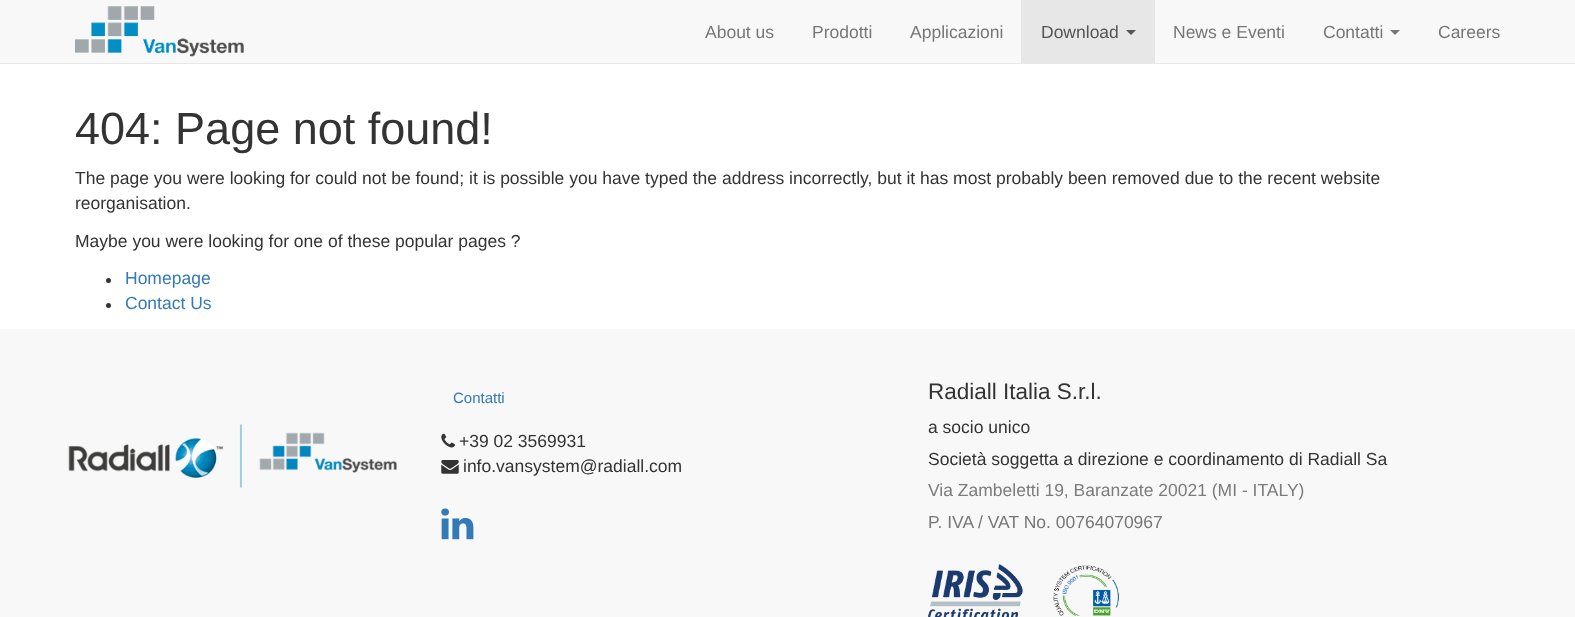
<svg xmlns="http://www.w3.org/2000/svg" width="1575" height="617">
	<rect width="100%" height="100%" fill="#FFFFFF" />
	<rect x="0" y="0" width="1575" height="63" fill="#F8F8F8" />
	<rect x="0" y="63" width="1575" height="1" fill="#E7E7E7" />
	<image x="75" y="6" width="169" height="51" href="assets/img1.png" />
	<g font-family="Liberation Sans" font-size="17.5" fill="#777777">
		<text x="705" y="38">About us</text>
		<text x="812" y="38">Prodotti</text>
		<text x="910" y="38">Applicazioni</text>
	</g>
	<rect x="1021" y="0" width="134" height="63" fill="#E7E7E7" />
	<text x="1041" y="38" font-family="Liberation Sans" font-size="17.5" fill="#555555">Download</text>
	<path d="M1126 30H1136L1131 35Z" fill="#555555" />
	<g font-family="Liberation Sans" font-size="17.5" fill="#777777">
		<text x="1173" y="38">News e Eventi</text>
		<text x="1323" y="38">Contatti</text>
	</g>
	<path d="M1390 30H1400L1395 35Z" fill="#777777" />
	<text x="1438" y="38" font-family="Liberation Sans" font-size="17.5" fill="#777777">Careers</text>
	<text x="75" y="144" font-family="Liberation Sans" font-size="45" fill="#333333">404: Page not found!</text>
	<g font-family="Liberation Sans" font-size="17.5" fill="#333333">
		<text x="75" y="184">The page you were looking for could not be found; it is possible you have typed the address incorrectly, but it has most probably been removed due to the recent website</text>
		<text x="75" y="209">reorganisation.</text>
		<text x="75" y="247">Maybe you were looking for one of these popular pages ?</text>
	</g>
	<circle cx="108.5" cy="280.5" r="2.5" fill="#333333" />
	<text x="125" y="284" font-family="Liberation Sans" font-size="17.5" fill="#337AB7">Homepage</text>
	<circle cx="108.5" cy="305.5" r="2.5" fill="#333333" />
	<text x="125" y="309" font-family="Liberation Sans" font-size="17.5" fill="#337AB7">Contact Us</text>
	<rect x="0" y="329" width="1575" height="288" fill="#F8F8F8" />
	<image x="68" y="424" width="329" height="64" href="assets/img2.png" />
	<text x="453" y="403" font-family="Liberation Sans" font-size="15" fill="#337AB7">Contatti</text>
	<image x="441" y="433" width="14" height="15" href="assets/img3.png" />
	<text x="459" y="447" font-family="Liberation Sans" font-size="17.5" fill="#333333">+39 02 3569931</text>
	<image x="441" y="460" width="18" height="14" href="assets/img4.png" />
	<text x="463" y="472" font-family="Liberation Sans" font-size="17.5" fill="#333333">info.vansystem@radiall.com</text>
	<image x="441" y="508" width="33" height="32" href="assets/img5.png" />
	<text x="928" y="399" font-family="Liberation Sans" font-size="22.5" fill="#333333">Radiall Italia S.r.l.</text>
	<g font-family="Liberation Sans" font-size="17.5" fill="#333333">
		<text x="928" y="433">a socio unico</text>
		<text x="928" y="465">Società soggetta a direzione e coordinamento di Radiall Sa</text>
	</g>
	<text x="928" y="496" font-family="Liberation Sans" font-size="17.5" fill="#7D7B7C">Via Zambeletti 19, Baranzate 20021 (MI - ITALY)</text>
	<text x="928" y="528" font-family="Liberation Sans" font-size="17.5" fill="#777777">P. IVA / VAT No. 00764070967</text>
	<image x="928" y="564" width="191" height="53" href="assets/img6.png" />
</svg>
